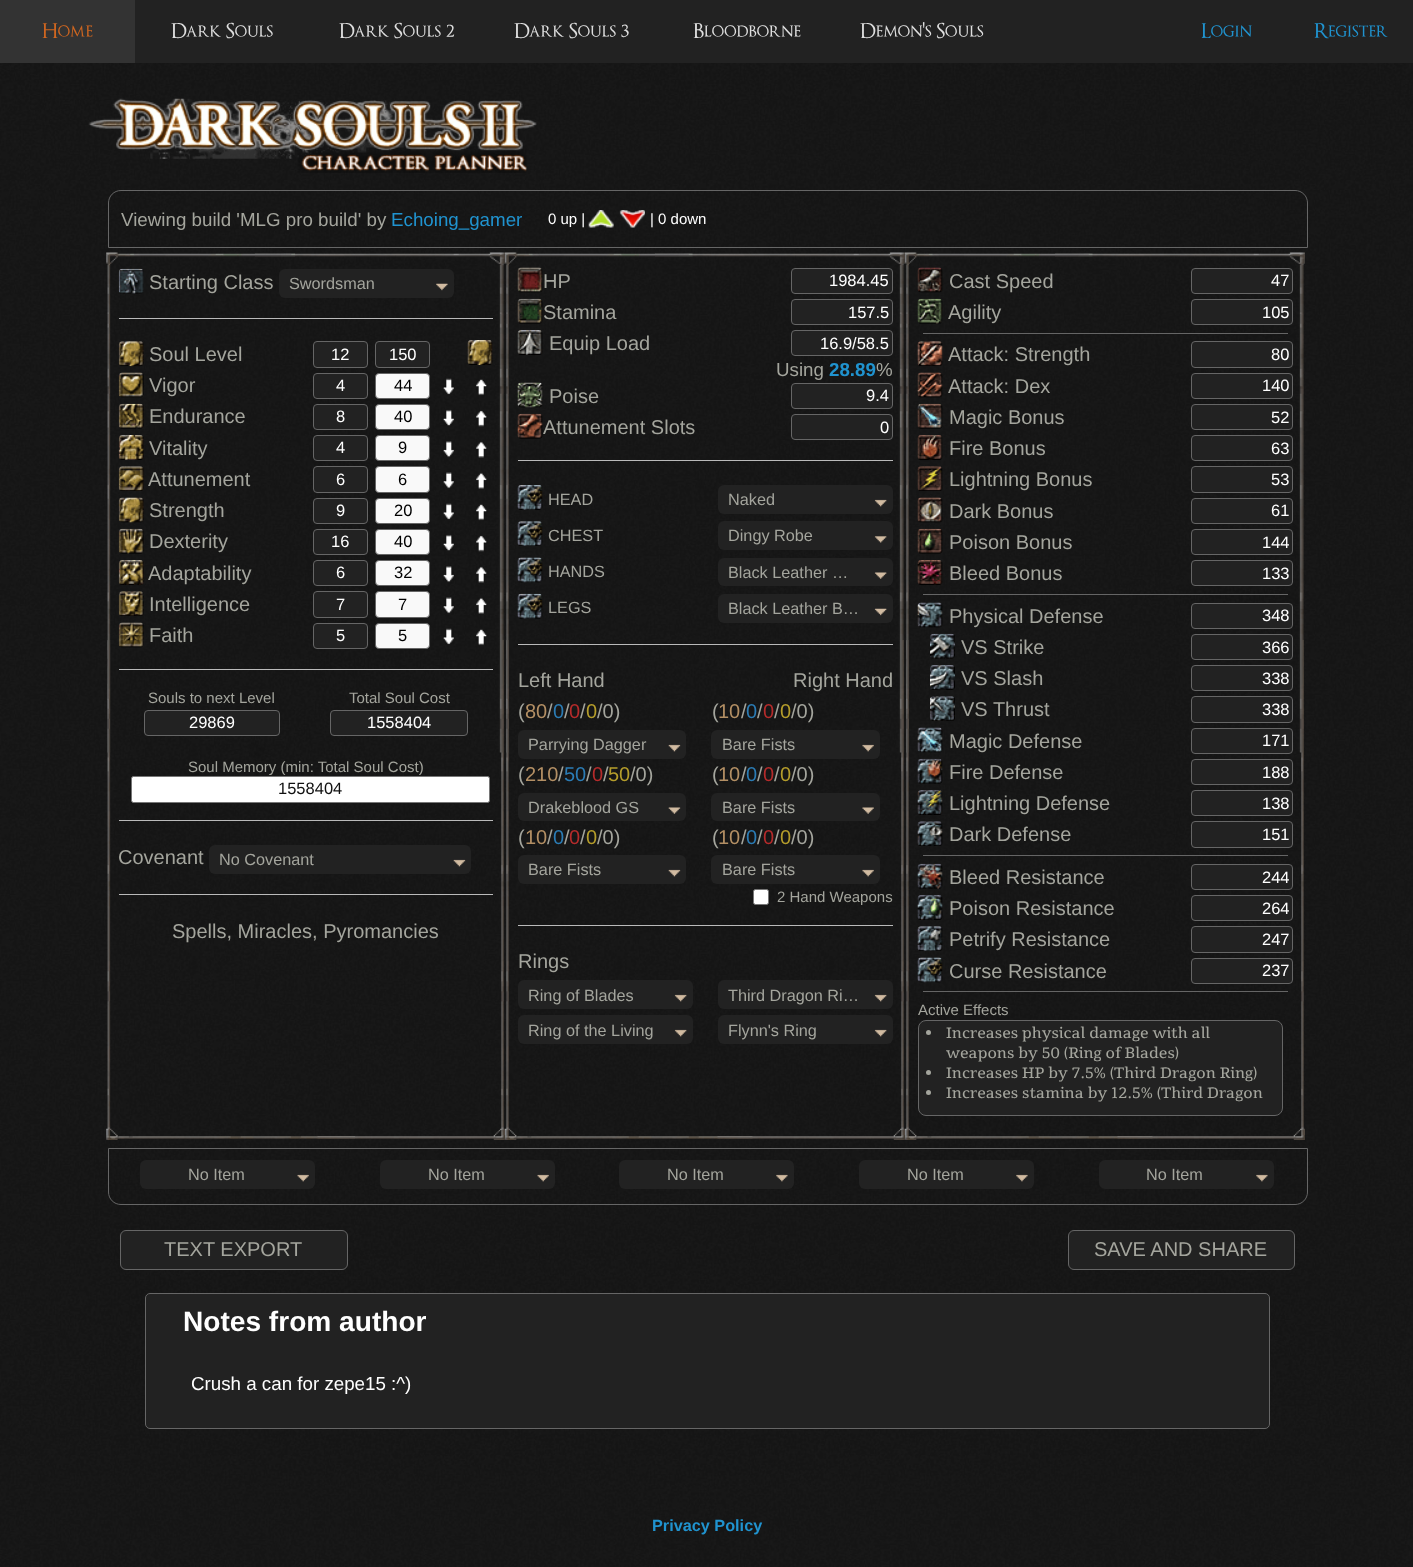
<svg xmlns="http://www.w3.org/2000/svg" width="1413" height="1567">
	<rect width="100%" height="100%" fill="#FFFFFF" />
	<image x="0" y="63" width="1413" height="1504" href="assets/img1.png" />
	<rect x="135" y="0" width="1278" height="63" fill="#222222" />
	<rect x="0" y="0" width="135" height="63" fill="#333333" />
	<text x="42" y="38" font-family="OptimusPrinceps" font-size="20" font-weight="500" fill="#CF6620">Home</text>
	<g font-family="OptimusPrinceps" font-size="20" font-weight="500" fill="#DFDFDF">
		<text x="171" y="38">Dark Souls</text>
		<text x="339" y="38">Dark Souls 2</text>
		<text x="514" y="38">Dark Souls 3</text>
		<text x="693" y="38">Bloodborne</text>
		<text x="860" y="38">Demon's Souls</text>
	</g>
	<g font-family="OptimusPrinceps" font-size="20" font-weight="500" fill="#2093CF">
		<text x="1201" y="38">Login</text>
		<text x="1314" y="38">Register</text>
	</g>
	<image x="88" y="98" width="449" height="75" href="assets/img2.png" />
	<path d="M121 190.5H1295C1302 190.5 1307.5 196 1307.5 203V247.5H108.5V203C108.5 196 114 190.5 121 190.5Z" fill="none" stroke="#666666" />
	<text x="121" y="226" font-family="Liberation Sans" font-size="18.75" fill="#A4A59D">Viewing build 'MLG pro build' by</text>
	<text x="391" y="226" font-family="Liberation Sans" font-size="18.75" fill="#2093CF">Echoing_gamer</text>
	<text x="548" y="224" font-family="Liberation Sans" font-size="15" fill="#FFFFFF">0 up |</text>
	<image x="588" y="210" width="26" height="18" href="assets/img3.png" />
	<image x="619" y="210" width="26" height="18" href="assets/img4.png" />
	<text x="650" y="224" font-family="Liberation Sans" font-size="15" fill="#FFFFFF">| 0 down</text>
	<image x="106" y="252" width="399" height="888" href="assets/img5.png" />
	<image x="118" y="268" width="26" height="26" href="assets/img6.png" />
	<text x="149" y="289" font-family="Liberation Sans" font-size="20" fill="#A4A59D">Starting Class</text>
	<rect x="279" y="269" width="175" height="29" rx="6" fill="#222222" />
	<text x="289" y="289" font-family="Liberation Sans" font-size="16.25" fill="#A4A59D">Swordsman</text>
	<image x="436" y="283" width="12" height="8" href="assets/img7.png" />
	<rect x="119" y="318" width="374" height="1" fill="#BABABA" />
	<image x="118" y="341" width="26" height="26" href="assets/img8.png" />
	<text x="149" y="361" font-family="Liberation Sans" font-size="20" fill="#A4A59D">Soul Level</text>
	<rect x="313.5" y="341.5" width="54" height="26" rx="3.5" fill="#222222" stroke="#666666" />
	<text x="331" y="360" font-family="Liberation Sans" font-size="16.5" fill="#FFFFFF">12</text>
	<rect x="375.5" y="341.5" width="54" height="26" rx="3.5" fill="#222222" stroke="#666666" />
	<text x="389" y="360" font-family="Liberation Sans" font-size="16.5" fill="#FFFFFF">150</text>
	<image x="467" y="340" width="26" height="25" href="assets/img9.png" />
	<image x="118" y="372" width="26" height="26" href="assets/img10.png" />
	<text x="149" y="392" font-family="Liberation Sans" font-size="20" fill="#A4A59D">Vigor</text>
	<rect x="313.5" y="373.5" width="54" height="25" rx="3.5" fill="#222222" stroke="#666666" />
	<text x="336" y="391" font-family="Liberation Sans" font-size="16.5" fill="#FFFFFF">4</text>
	<rect x="375.5" y="373.5" width="54" height="25" rx="3.5" fill="#F9F9F9" stroke="#666666" />
	<text x="394" y="391" font-family="Liberation Sans" font-size="16.5" fill="#000000">44</text>
	<image x="443" y="378" width="11" height="17" href="assets/img11.png" />
	<image x="476" y="379" width="11" height="17" href="assets/img12.png" />
	<image x="118" y="403" width="26" height="26" href="assets/img13.png" />
	<text x="149" y="423" font-family="Liberation Sans" font-size="20" fill="#A4A59D">Endurance</text>
	<rect x="313.5" y="404.5" width="54" height="25" rx="3.5" fill="#222222" stroke="#666666" />
	<text x="336" y="422" font-family="Liberation Sans" font-size="16.5" fill="#FFFFFF">8</text>
	<rect x="375.5" y="404.5" width="54" height="25" rx="3.5" fill="#F9F9F9" stroke="#666666" />
	<text x="394" y="422" font-family="Liberation Sans" font-size="16.5" fill="#000000">40</text>
	<image x="443" y="409" width="11" height="17" href="assets/img14.png" />
	<image x="476" y="410" width="11" height="17" href="assets/img15.png" />
	<image x="118" y="435" width="26" height="25" href="assets/img16.png" />
	<text x="149" y="455" font-family="Liberation Sans" font-size="20" fill="#A4A59D">Vitality</text>
	<rect x="313.5" y="435.5" width="54" height="25" rx="3.5" fill="#222222" stroke="#666666" />
	<text x="336" y="453" font-family="Liberation Sans" font-size="16.5" fill="#FFFFFF">4</text>
	<rect x="375.5" y="435.5" width="54" height="25" rx="3.5" fill="#F9F9F9" stroke="#666666" />
	<text x="398" y="453" font-family="Liberation Sans" font-size="16.5" fill="#000000">9</text>
	<image x="443" y="441" width="11" height="17" href="assets/img17.png" />
	<image x="476" y="441" width="11" height="17" href="assets/img18.png" />
	<image x="118" y="466" width="26" height="25" href="assets/img19.png" />
	<text x="148" y="486" font-family="Liberation Sans" font-size="20" fill="#A4A59D">Attunement</text>
	<rect x="313.5" y="466.5" width="54" height="26" rx="3.5" fill="#222222" stroke="#666666" />
	<text x="336" y="485" font-family="Liberation Sans" font-size="16.5" fill="#FFFFFF">6</text>
	<rect x="375.5" y="466.5" width="54" height="26" rx="3.5" fill="#F9F9F9" stroke="#666666" />
	<text x="398" y="485" font-family="Liberation Sans" font-size="16.5" fill="#000000">6</text>
	<image x="443" y="472" width="11" height="17" href="assets/img20.png" />
	<image x="476" y="472" width="11" height="17" href="assets/img21.png" />
	<image x="118" y="497" width="26" height="26" href="assets/img22.png" />
	<text x="149" y="517" font-family="Liberation Sans" font-size="20" fill="#A4A59D">Strength</text>
	<rect x="313.5" y="498.5" width="54" height="25" rx="3.5" fill="#222222" stroke="#666666" />
	<text x="336" y="516" font-family="Liberation Sans" font-size="16.5" fill="#FFFFFF">9</text>
	<rect x="375.5" y="498.5" width="54" height="25" rx="3.5" fill="#F9F9F9" stroke="#666666" />
	<text x="394" y="516" font-family="Liberation Sans" font-size="16.5" fill="#000000">20</text>
	<image x="443" y="503" width="11" height="17" href="assets/img23.png" />
	<image x="476" y="504" width="11" height="17" href="assets/img24.png" />
	<image x="118" y="528" width="26" height="26" href="assets/img25.png" />
	<text x="149" y="548" font-family="Liberation Sans" font-size="20" fill="#A4A59D">Dexterity</text>
	<rect x="313.5" y="529.5" width="54" height="25" rx="3.5" fill="#222222" stroke="#666666" />
	<text x="331" y="547" font-family="Liberation Sans" font-size="16.5" fill="#FFFFFF">16</text>
	<rect x="375.5" y="529.5" width="54" height="25" rx="3.5" fill="#F9F9F9" stroke="#666666" />
	<text x="394" y="547" font-family="Liberation Sans" font-size="16.5" fill="#000000">40</text>
	<image x="443" y="534" width="11" height="17" href="assets/img26.png" />
	<image x="476" y="535" width="11" height="17" href="assets/img27.png" />
	<image x="118" y="560" width="26" height="25" href="assets/img28.png" />
	<text x="148" y="580" font-family="Liberation Sans" font-size="20" fill="#A4A59D">Adaptability</text>
	<rect x="313.5" y="560.5" width="54" height="25" rx="3.5" fill="#222222" stroke="#666666" />
	<text x="336" y="578" font-family="Liberation Sans" font-size="16.5" fill="#FFFFFF">6</text>
	<rect x="375.5" y="560.5" width="54" height="25" rx="3.5" fill="#F9F9F9" stroke="#666666" />
	<text x="394" y="578" font-family="Liberation Sans" font-size="16.5" fill="#000000">32</text>
	<image x="443" y="566" width="11" height="17" href="assets/img29.png" />
	<image x="476" y="566" width="11" height="17" href="assets/img30.png" />
	<image x="118" y="591" width="26" height="25" href="assets/img31.png" />
	<text x="149" y="611" font-family="Liberation Sans" font-size="20" fill="#A4A59D">Intelligence</text>
	<rect x="313.5" y="591.5" width="54" height="26" rx="3.5" fill="#222222" stroke="#666666" />
	<text x="336" y="610" font-family="Liberation Sans" font-size="16.5" fill="#FFFFFF">7</text>
	<rect x="375.5" y="591.5" width="54" height="26" rx="3.5" fill="#F9F9F9" stroke="#666666" />
	<text x="398" y="610" font-family="Liberation Sans" font-size="16.5" fill="#000000">7</text>
	<image x="443" y="597" width="11" height="17" href="assets/img32.png" />
	<image x="476" y="597" width="11" height="17" href="assets/img33.png" />
	<image x="118" y="622" width="26" height="26" href="assets/img34.png" />
	<text x="149" y="642" font-family="Liberation Sans" font-size="20" fill="#A4A59D">Faith</text>
	<rect x="313.5" y="623.5" width="54" height="25" rx="3.5" fill="#222222" stroke="#666666" />
	<text x="336" y="641" font-family="Liberation Sans" font-size="16.5" fill="#FFFFFF">5</text>
	<rect x="375.5" y="623.5" width="54" height="25" rx="3.5" fill="#F9F9F9" stroke="#666666" />
	<text x="398" y="641" font-family="Liberation Sans" font-size="16.5" fill="#000000">5</text>
	<image x="443" y="628" width="11" height="17" href="assets/img35.png" />
	<image x="476" y="629" width="11" height="17" href="assets/img36.png" />
	<rect x="119" y="669" width="374" height="1" fill="#BABABA" />
	<g font-family="Liberation Sans" font-size="15" fill="#A4A59D">
		<text x="148" y="703">Souls to next Level</text>
		<text x="349" y="703">Total Soul Cost</text>
	</g>
	<rect x="144.5" y="710.5" width="135" height="25" rx="3.5" fill="#222222" stroke="#666666" />
	<text x="189" y="728" font-family="Liberation Sans" font-size="16.5" fill="#FFFFFF">29869</text>
	<rect x="330.5" y="710.5" width="137" height="25" rx="3.5" fill="#222222" stroke="#666666" />
	<text x="367" y="728" font-family="Liberation Sans" font-size="16.5" fill="#FFFFFF">1558404</text>
	<text x="188" y="772" font-family="Liberation Sans" font-size="15" fill="#A4A59D">Soul Memory (min: Total Soul Cost)</text>
	<rect x="131.5" y="776.5" width="358" height="26" rx="2" fill="#FFFFFF" stroke="#767676" />
	<text x="278" y="794" font-family="Liberation Sans" font-size="16.5" fill="#111111">1558404</text>
	<rect x="119" y="820" width="374" height="1" fill="#BABABA" />
	<text x="118" y="864" font-family="Liberation Sans" font-size="20" fill="#A4A59D">Covenant</text>
	<rect x="209" y="845" width="262" height="29" rx="6" fill="#222222" />
	<text x="219" y="865" font-family="Liberation Sans" font-size="16.25" fill="#A4A59D">No Covenant</text>
	<image x="453" y="859" width="13" height="8" href="assets/img37.png" />
	<rect x="119" y="894" width="374" height="1" fill="#BABABA" />
	<text x="172" y="938" font-family="Liberation Sans" font-size="20" fill="#A4A59D">Spells, Miracles, Pyromancies</text>
	<image x="505" y="252" width="400" height="888" href="assets/img38.png" />
	<image x="517" y="267" width="26" height="26" href="assets/img39.png" />
	<text x="543" y="288" font-family="Liberation Sans" font-size="20" fill="#A4A59D">HP</text>
	<rect x="791.5" y="268.5" width="101" height="25" rx="3.5" fill="#222222" stroke="#666666" />
	<text x="829" y="286" font-family="Liberation Sans" font-size="16.5" fill="#FFFFFF">1984.45</text>
	<image x="517" y="298" width="26" height="26" href="assets/img40.png" />
	<text x="543" y="319" font-family="Liberation Sans" font-size="20" fill="#A4A59D">Stamina</text>
	<rect x="791.5" y="299.5" width="101" height="25" rx="3.5" fill="#222222" stroke="#666666" />
	<text x="848" y="318" font-family="Liberation Sans" font-size="16.5" fill="#FFFFFF">157.5</text>
	<image x="517" y="330" width="26" height="25" href="assets/img41.png" />
	<text x="549" y="350" font-family="Liberation Sans" font-size="20" fill="#A4A59D">Equip Load</text>
	<rect x="791.5" y="330.5" width="101" height="25" rx="3.5" fill="#222222" stroke="#666666" />
	<text x="820" y="349" font-family="Liberation Sans" font-size="16.5" fill="#FFFFFF">16.9/58.5</text>
	<text x="776" y="376" font-family="Liberation Sans" font-size="18.75" fill="#A4A59D">Using</text>
	<text x="829" y="376" font-family="Liberation Sans" font-size="18.75" font-weight="700" fill="#2093CF">28.89</text>
	<text x="876" y="376" font-family="Liberation Sans" font-size="18.75" fill="#A4A59D">%</text>
	<image x="517" y="382" width="26" height="26" href="assets/img42.png" />
	<text x="549" y="403" font-family="Liberation Sans" font-size="20" fill="#A4A59D">Poise</text>
	<rect x="791.5" y="383.5" width="101" height="25" rx="3.5" fill="#222222" stroke="#666666" />
	<text x="866" y="401" font-family="Liberation Sans" font-size="16.5" fill="#FFFFFF">9.4</text>
	<image x="517" y="413" width="26" height="26" href="assets/img43.png" />
	<text x="543" y="434" font-family="Liberation Sans" font-size="20" fill="#A4A59D">Attunement Slots</text>
	<rect x="791.5" y="414.5" width="101" height="25" rx="3.5" fill="#222222" stroke="#666666" />
	<text x="880" y="433" font-family="Liberation Sans" font-size="16.5" fill="#FFFFFF">0</text>
	<rect x="518" y="460" width="375" height="1" fill="#BABABA" />
	<image x="517" y="485" width="26" height="25" href="assets/img44.png" />
	<text x="548" y="505" font-family="Liberation Sans" font-size="16.25" fill="#A4A59D">HEAD</text>
	<rect x="718" y="485" width="175" height="29" rx="6" fill="#222222" />
	<text x="728" y="505" font-family="Liberation Sans" font-size="16.25" fill="#A4A59D">Naked</text>
	<image x="874" y="499" width="13" height="8" href="assets/img45.png" />
	<image x="517" y="521" width="26" height="25" href="assets/img46.png" />
	<text x="548" y="541" font-family="Liberation Sans" font-size="16.25" fill="#A4A59D">CHEST</text>
	<rect x="718" y="521" width="175" height="29" rx="6" fill="#222222" />
	<text x="728" y="541" font-family="Liberation Sans" font-size="16.25" fill="#A4A59D">Dingy Robe</text>
	<image x="874" y="536" width="13" height="7" href="assets/img47.png" />
	<image x="517" y="557" width="26" height="26" href="assets/img48.png" />
	<text x="548" y="577" font-family="Liberation Sans" font-size="16.25" fill="#A4A59D">HANDS</text>
	<rect x="718" y="558" width="175" height="28" rx="6" fill="#222222" />
	<text x="728" y="578" font-family="Liberation Sans" font-size="16.25" fill="#A4A59D">Black Leather …</text>
	<image x="874" y="572" width="13" height="7" href="assets/img49.png" />
	<image x="517" y="593" width="26" height="26" href="assets/img50.png" />
	<text x="548" y="613" font-family="Liberation Sans" font-size="16.25" fill="#A4A59D">LEGS</text>
	<rect x="718" y="594" width="175" height="29" rx="6" fill="#222222" />
	<text x="728" y="614" font-family="Liberation Sans" font-size="16.25" fill="#A4A59D">Black Leather B…</text>
	<image x="874" y="608" width="13" height="8" href="assets/img51.png" />
	<rect x="518" y="644" width="375" height="1" fill="#BABABA" />
	<g font-family="Liberation Sans" font-size="20" fill="#A4A59D">
		<text x="518" y="687">Left Hand</text>
		<text x="793" y="687">Right Hand</text>
		<text x="518" y="718">(</text>
	</g>
	<text x="525" y="718" font-family="Liberation Sans" font-size="20" fill="#B38F64">80</text>
	<text x="547" y="718" font-family="Liberation Sans" font-size="20" fill="#A4A59D">/</text>
	<text x="553" y="718" font-family="Liberation Sans" font-size="20" fill="#2B7CB5">0</text>
	<text x="564" y="718" font-family="Liberation Sans" font-size="20" fill="#A4A59D">/</text>
	<text x="569" y="718" font-family="Liberation Sans" font-size="20" fill="#B52B2B">0</text>
	<text x="580" y="718" font-family="Liberation Sans" font-size="20" fill="#A4A59D">/</text>
	<text x="586" y="718" font-family="Liberation Sans" font-size="20" fill="#B59D2B">0</text>
	<text x="597" y="718" font-family="Liberation Sans" font-size="20" fill="#A4A59D">/0)</text>
	<rect x="518" y="730" width="168" height="29" rx="6" fill="#222222" />
	<text x="528" y="750" font-family="Liberation Sans" font-size="16.25" fill="#A4A59D">Parrying Dagger</text>
	<image x="668" y="744" width="13" height="8" href="assets/img37.png" />
	<text x="518" y="781" font-family="Liberation Sans" font-size="20" fill="#A4A59D">(</text>
	<text x="525" y="781" font-family="Liberation Sans" font-size="20" fill="#B38F64">210</text>
	<text x="558" y="781" font-family="Liberation Sans" font-size="20" fill="#A4A59D">/</text>
	<text x="564" y="781" font-family="Liberation Sans" font-size="20" fill="#2B7CB5">50</text>
	<text x="586" y="781" font-family="Liberation Sans" font-size="20" fill="#A4A59D">/</text>
	<text x="592" y="781" font-family="Liberation Sans" font-size="20" fill="#B52B2B">0</text>
	<text x="603" y="781" font-family="Liberation Sans" font-size="20" fill="#A4A59D">/</text>
	<text x="608" y="781" font-family="Liberation Sans" font-size="20" fill="#B59D2B">50</text>
	<text x="630" y="781" font-family="Liberation Sans" font-size="20" fill="#A4A59D">/0)</text>
	<rect x="518" y="793" width="168" height="28" rx="6" fill="#222222" />
	<text x="528" y="813" font-family="Liberation Sans" font-size="16.25" fill="#A4A59D">Drakeblood GS</text>
	<image x="668" y="807" width="13" height="7" href="assets/img52.png" />
	<text x="518" y="844" font-family="Liberation Sans" font-size="20" fill="#A4A59D">(</text>
	<text x="525" y="844" font-family="Liberation Sans" font-size="20" fill="#B38F64">10</text>
	<text x="547" y="844" font-family="Liberation Sans" font-size="20" fill="#A4A59D">/</text>
	<text x="553" y="844" font-family="Liberation Sans" font-size="20" fill="#2B7CB5">0</text>
	<text x="564" y="844" font-family="Liberation Sans" font-size="20" fill="#A4A59D">/</text>
	<text x="569" y="844" font-family="Liberation Sans" font-size="20" fill="#B52B2B">0</text>
	<text x="580" y="844" font-family="Liberation Sans" font-size="20" fill="#A4A59D">/</text>
	<text x="586" y="844" font-family="Liberation Sans" font-size="20" fill="#B59D2B">0</text>
	<text x="597" y="844" font-family="Liberation Sans" font-size="20" fill="#A4A59D">/0)</text>
	<rect x="518" y="855" width="168" height="29" rx="6" fill="#222222" />
	<text x="528" y="875" font-family="Liberation Sans" font-size="16.25" fill="#A4A59D">Bare Fists</text>
	<image x="668" y="869" width="13" height="8" href="assets/img37.png" />
	<text x="712" y="718" font-family="Liberation Sans" font-size="20" fill="#A4A59D">(</text>
	<text x="718" y="718" font-family="Liberation Sans" font-size="20" fill="#B38F64">10</text>
	<text x="741" y="718" font-family="Liberation Sans" font-size="20" fill="#A4A59D">/</text>
	<text x="746" y="718" font-family="Liberation Sans" font-size="20" fill="#2B7CB5">0</text>
	<text x="757" y="718" font-family="Liberation Sans" font-size="20" fill="#A4A59D">/</text>
	<text x="763" y="718" font-family="Liberation Sans" font-size="20" fill="#B52B2B">0</text>
	<text x="774" y="718" font-family="Liberation Sans" font-size="20" fill="#A4A59D">/</text>
	<text x="780" y="718" font-family="Liberation Sans" font-size="20" fill="#B59D2B">0</text>
	<text x="791" y="718" font-family="Liberation Sans" font-size="20" fill="#A4A59D">/0)</text>
	<rect x="711" y="730" width="169" height="29" rx="6" fill="#222222" />
	<text x="722" y="750" font-family="Liberation Sans" font-size="16.25" fill="#A4A59D">Bare Fists</text>
	<image x="862" y="744" width="12" height="8" href="assets/img53.png" />
	<text x="712" y="781" font-family="Liberation Sans" font-size="20" fill="#A4A59D">(</text>
	<text x="718" y="781" font-family="Liberation Sans" font-size="20" fill="#B38F64">10</text>
	<text x="741" y="781" font-family="Liberation Sans" font-size="20" fill="#A4A59D">/</text>
	<text x="746" y="781" font-family="Liberation Sans" font-size="20" fill="#2B7CB5">0</text>
	<text x="757" y="781" font-family="Liberation Sans" font-size="20" fill="#A4A59D">/</text>
	<text x="763" y="781" font-family="Liberation Sans" font-size="20" fill="#B52B2B">0</text>
	<text x="774" y="781" font-family="Liberation Sans" font-size="20" fill="#A4A59D">/</text>
	<text x="780" y="781" font-family="Liberation Sans" font-size="20" fill="#B59D2B">0</text>
	<text x="791" y="781" font-family="Liberation Sans" font-size="20" fill="#A4A59D">/0)</text>
	<rect x="711" y="793" width="169" height="28" rx="6" fill="#222222" />
	<text x="722" y="813" font-family="Liberation Sans" font-size="16.25" fill="#A4A59D">Bare Fists</text>
	<image x="862" y="807" width="12" height="7" href="assets/img54.png" />
	<text x="712" y="844" font-family="Liberation Sans" font-size="20" fill="#A4A59D">(</text>
	<text x="718" y="844" font-family="Liberation Sans" font-size="20" fill="#B38F64">10</text>
	<text x="741" y="844" font-family="Liberation Sans" font-size="20" fill="#A4A59D">/</text>
	<text x="746" y="844" font-family="Liberation Sans" font-size="20" fill="#2B7CB5">0</text>
	<text x="757" y="844" font-family="Liberation Sans" font-size="20" fill="#A4A59D">/</text>
	<text x="763" y="844" font-family="Liberation Sans" font-size="20" fill="#B52B2B">0</text>
	<text x="774" y="844" font-family="Liberation Sans" font-size="20" fill="#A4A59D">/</text>
	<text x="780" y="844" font-family="Liberation Sans" font-size="20" fill="#B59D2B">0</text>
	<text x="791" y="844" font-family="Liberation Sans" font-size="20" fill="#A4A59D">/0)</text>
	<rect x="711" y="855" width="169" height="29" rx="6" fill="#222222" />
	<text x="722" y="875" font-family="Liberation Sans" font-size="16.25" fill="#A4A59D">Bare Fists</text>
	<image x="862" y="869" width="12" height="8" href="assets/img53.png" />
	<rect x="753.5" y="889.5" width="15" height="15" rx="2" fill="#FFFFFF" stroke="#767676" />
	<text x="777" y="902" font-family="Liberation Sans" font-size="15" fill="#A4A59D">2 Hand Weapons</text>
	<rect x="518" y="925" width="375" height="1" fill="#BABABA" />
	<text x="518" y="968" font-family="Liberation Sans" font-size="20" fill="#A4A59D">Rings</text>
	<rect x="518" y="980" width="175" height="29" rx="6" fill="#222222" />
	<text x="528" y="1001" font-family="Liberation Sans" font-size="16.25" fill="#A4A59D">Ring of Blades</text>
	<image x="674" y="994" width="13" height="8" href="assets/img55.png" />
	<rect x="718" y="980" width="175" height="29" rx="6" fill="#222222" />
	<text x="728" y="1001" font-family="Liberation Sans" font-size="16.25" fill="#A4A59D">Third Dragon Ri…</text>
	<image x="874" y="994" width="13" height="8" href="assets/img45.png" />
	<rect x="518" y="1015" width="175" height="29" rx="6" fill="#222222" />
	<text x="528" y="1036" font-family="Liberation Sans" font-size="16.25" fill="#A4A59D">Ring of the Living</text>
	<image x="674" y="1029" width="13" height="8" href="assets/img55.png" />
	<rect x="718" y="1015" width="175" height="29" rx="6" fill="#222222" />
	<text x="728" y="1036" font-family="Liberation Sans" font-size="16.25" fill="#A4A59D">Flynn's Ring</text>
	<image x="874" y="1029" width="13" height="8" href="assets/img45.png" />
	<image x="905" y="252" width="400" height="888" href="assets/img56.png" />
	<image x="917" y="267" width="26" height="26" href="assets/img57.png" />
	<text x="949" y="288" font-family="Liberation Sans" font-size="20" fill="#A4A59D">Cast Speed</text>
	<rect x="1191.5" y="268.5" width="101" height="25" rx="3.5" fill="#222222" stroke="#666666" />
	<text x="1271" y="286" font-family="Liberation Sans" font-size="16.5" fill="#FFFFFF">47</text>
	<image x="917" y="298" width="26" height="26" href="assets/img58.png" />
	<text x="948" y="319" font-family="Liberation Sans" font-size="20" fill="#A4A59D">Agility</text>
	<rect x="1191.5" y="299.5" width="101" height="25" rx="3.5" fill="#222222" stroke="#666666" />
	<text x="1262" y="318" font-family="Liberation Sans" font-size="16.5" fill="#FFFFFF">105</text>
	<rect x="923" y="333" width="365" height="1" fill="#656565" />
	<image x="917" y="341" width="26" height="25" href="assets/img59.png" />
	<text x="948" y="361" font-family="Liberation Sans" font-size="20" fill="#A4A59D">Attack: Strength</text>
	<rect x="1191.5" y="341.5" width="101" height="26" rx="3.5" fill="#222222" stroke="#666666" />
	<text x="1271" y="360" font-family="Liberation Sans" font-size="16.5" fill="#FFFFFF">80</text>
	<image x="917" y="372" width="26" height="26" href="assets/img60.png" />
	<text x="948" y="393" font-family="Liberation Sans" font-size="20" fill="#A4A59D">Attack: Dex</text>
	<rect x="1191.5" y="373.5" width="101" height="25" rx="3.5" fill="#222222" stroke="#666666" />
	<text x="1262" y="391" font-family="Liberation Sans" font-size="16.5" fill="#FFFFFF">140</text>
	<image x="917" y="403" width="26" height="26" href="assets/img61.png" />
	<text x="949" y="424" font-family="Liberation Sans" font-size="20" fill="#A4A59D">Magic Bonus</text>
	<rect x="1191.5" y="404.5" width="101" height="25" rx="3.5" fill="#222222" stroke="#666666" />
	<text x="1271" y="423" font-family="Liberation Sans" font-size="16.5" fill="#FFFFFF">52</text>
	<image x="917" y="435" width="26" height="25" href="assets/img62.png" />
	<text x="949" y="455" font-family="Liberation Sans" font-size="20" fill="#A4A59D">Fire Bonus</text>
	<rect x="1191.5" y="435.5" width="101" height="25" rx="3.5" fill="#222222" stroke="#666666" />
	<text x="1271" y="454" font-family="Liberation Sans" font-size="16.5" fill="#FFFFFF">63</text>
	<image x="917" y="466" width="26" height="25" href="assets/img63.png" />
	<text x="949" y="486" font-family="Liberation Sans" font-size="20" fill="#A4A59D">Lightning Bonus</text>
	<rect x="1191.5" y="466.5" width="101" height="26" rx="3.5" fill="#222222" stroke="#666666" />
	<text x="1271" y="485" font-family="Liberation Sans" font-size="16.5" fill="#FFFFFF">53</text>
	<image x="917" y="497" width="26" height="26" href="assets/img64.png" />
	<text x="949" y="518" font-family="Liberation Sans" font-size="20" fill="#A4A59D">Dark Bonus</text>
	<rect x="1191.5" y="498.5" width="101" height="25" rx="3.5" fill="#222222" stroke="#666666" />
	<text x="1271" y="516" font-family="Liberation Sans" font-size="16.5" fill="#FFFFFF">61</text>
	<image x="917" y="528" width="26" height="26" href="assets/img65.png" />
	<text x="949" y="549" font-family="Liberation Sans" font-size="20" fill="#A4A59D">Poison Bonus</text>
	<rect x="1191.5" y="529.5" width="101" height="25" rx="3.5" fill="#222222" stroke="#666666" />
	<text x="1262" y="548" font-family="Liberation Sans" font-size="16.5" fill="#FFFFFF">144</text>
	<image x="917" y="560" width="26" height="25" href="assets/img66.png" />
	<text x="949" y="580" font-family="Liberation Sans" font-size="20" fill="#A4A59D">Bleed Bonus</text>
	<rect x="1191.5" y="560.5" width="101" height="25" rx="3.5" fill="#222222" stroke="#666666" />
	<text x="1262" y="579" font-family="Liberation Sans" font-size="16.5" fill="#FFFFFF">133</text>
	<rect x="923" y="594" width="365" height="1" fill="#656565" />
	<image x="917" y="602" width="26" height="26" href="assets/img67.png" />
	<text x="949" y="623" font-family="Liberation Sans" font-size="20" fill="#A4A59D">Physical Defense</text>
	<rect x="1191.5" y="603.5" width="101" height="25" rx="3.5" fill="#222222" stroke="#666666" />
	<text x="1262" y="621" font-family="Liberation Sans" font-size="16.5" fill="#FFFFFF">348</text>
	<image x="930" y="633" width="25" height="26" href="assets/img68.png" />
	<text x="961" y="654" font-family="Liberation Sans" font-size="20" fill="#A4A59D">VS Strike</text>
	<rect x="1191.5" y="634.5" width="101" height="25" rx="3.5" fill="#222222" stroke="#666666" />
	<text x="1262" y="653" font-family="Liberation Sans" font-size="16.5" fill="#FFFFFF">366</text>
	<image x="930" y="665" width="25" height="25" href="assets/img69.png" />
	<text x="961" y="685" font-family="Liberation Sans" font-size="20" fill="#A4A59D">VS Slash</text>
	<rect x="1191.5" y="665.5" width="101" height="25" rx="3.5" fill="#222222" stroke="#666666" />
	<text x="1262" y="684" font-family="Liberation Sans" font-size="16.5" fill="#FFFFFF">338</text>
	<image x="930" y="696" width="25" height="25" href="assets/img70.png" />
	<text x="961" y="716" font-family="Liberation Sans" font-size="20" fill="#A4A59D">VS Thrust</text>
	<rect x="1191.5" y="696.5" width="101" height="26" rx="3.5" fill="#222222" stroke="#666666" />
	<text x="1262" y="715" font-family="Liberation Sans" font-size="16.5" fill="#FFFFFF">338</text>
	<image x="917" y="727" width="26" height="26" href="assets/img71.png" />
	<text x="949" y="748" font-family="Liberation Sans" font-size="20" fill="#A4A59D">Magic Defense</text>
	<rect x="1191.5" y="728.5" width="101" height="25" rx="3.5" fill="#222222" stroke="#666666" />
	<text x="1262" y="746" font-family="Liberation Sans" font-size="16.5" fill="#FFFFFF">171</text>
	<image x="917" y="758" width="26" height="26" href="assets/img72.png" />
	<text x="949" y="779" font-family="Liberation Sans" font-size="20" fill="#A4A59D">Fire Defense</text>
	<rect x="1191.5" y="759.5" width="101" height="25" rx="3.5" fill="#222222" stroke="#666666" />
	<text x="1262" y="778" font-family="Liberation Sans" font-size="16.5" fill="#FFFFFF">188</text>
	<image x="917" y="790" width="26" height="25" href="assets/img73.png" />
	<text x="949" y="810" font-family="Liberation Sans" font-size="20" fill="#A4A59D">Lightning Defense</text>
	<rect x="1191.5" y="790.5" width="101" height="25" rx="3.5" fill="#222222" stroke="#666666" />
	<text x="1262" y="809" font-family="Liberation Sans" font-size="16.5" fill="#FFFFFF">138</text>
	<image x="917" y="821" width="26" height="25" href="assets/img74.png" />
	<text x="949" y="841" font-family="Liberation Sans" font-size="20" fill="#A4A59D">Dark Defense</text>
	<rect x="1191.5" y="821.5" width="101" height="26" rx="3.5" fill="#222222" stroke="#666666" />
	<text x="1262" y="840" font-family="Liberation Sans" font-size="16.5" fill="#FFFFFF">151</text>
	<rect x="923" y="855" width="365" height="1" fill="#656565" />
	<image x="917" y="863" width="26" height="26" href="assets/img75.png" />
	<text x="949" y="884" font-family="Liberation Sans" font-size="20" fill="#A4A59D">Bleed Resistance</text>
	<rect x="1191.5" y="864.5" width="101" height="25" rx="3.5" fill="#222222" stroke="#666666" />
	<text x="1262" y="883" font-family="Liberation Sans" font-size="16.5" fill="#FFFFFF">244</text>
	<image x="917" y="895" width="26" height="25" href="assets/img76.png" />
	<text x="949" y="915" font-family="Liberation Sans" font-size="20" fill="#A4A59D">Poison Resistance</text>
	<rect x="1191.5" y="895.5" width="101" height="25" rx="3.5" fill="#222222" stroke="#666666" />
	<text x="1262" y="914" font-family="Liberation Sans" font-size="16.5" fill="#FFFFFF">264</text>
	<image x="917" y="926" width="26" height="25" href="assets/img77.png" />
	<text x="949" y="946" font-family="Liberation Sans" font-size="20" fill="#A4A59D">Petrify Resistance</text>
	<rect x="1191.5" y="926.5" width="101" height="26" rx="3.5" fill="#222222" stroke="#666666" />
	<text x="1262" y="945" font-family="Liberation Sans" font-size="16.5" fill="#FFFFFF">247</text>
	<image x="917" y="957" width="26" height="26" href="assets/img78.png" />
	<text x="949" y="978" font-family="Liberation Sans" font-size="20" fill="#A4A59D">Curse Resistance</text>
	<rect x="1191.5" y="958.5" width="101" height="25" rx="3.5" fill="#222222" stroke="#666666" />
	<text x="1262" y="976" font-family="Liberation Sans" font-size="16.5" fill="#FFFFFF">237</text>
	<rect x="923" y="991" width="365" height="1" fill="#656565" />
	<text x="918" y="1015" font-family="Liberation Sans" font-size="15" fill="#A4A59D">Active Effects</text>
	<rect x="918.5" y="1020.5" width="364" height="95" rx="7.5" fill="#222222" stroke="#666666" />
	<circle cx="928.5" cy="1032.5" r="2.5" fill="#A4A59D" />
	<g font-family="Tienne" font-size="15" fill="#A4A59D">
		<text x="946" y="1038">Increases physical damage with all</text>
		<text x="946" y="1058">weapons by 50 (Ring of Blades)</text>
	</g>
	<circle cx="928.5" cy="1072.5" r="2.5" fill="#A4A59D" />
	<text x="946" y="1078" font-family="Tienne" font-size="15" fill="#A4A59D">Increases HP by 7.5% (Third Dragon Ring)</text>
	<circle cx="928.5" cy="1092.5" r="2.5" fill="#A4A59D" />
	<text x="946" y="1098" font-family="Tienne" font-size="15" fill="#A4A59D">Increases stamina by 12.5% (Third Dragon</text>
	<path d="M108.5 1148.5H1307.5V1192C1307.5 1199 1302 1204.5 1295 1204.5H121C114 1204.5 108.5 1199 108.5 1192Z" fill="none" stroke="#666666" />
	<rect x="140" y="1160" width="175" height="29" rx="6" fill="#222222" />
	<text x="188" y="1180" font-family="Liberation Sans" font-size="16.25" fill="#A4A59D">No Item</text>
	<image x="297" y="1174" width="12" height="8" href="assets/img79.png" />
	<rect x="380" y="1160" width="175" height="29" rx="6" fill="#222222" />
	<text x="428" y="1180" font-family="Liberation Sans" font-size="16.25" fill="#A4A59D">No Item</text>
	<image x="537" y="1174" width="12" height="8" href="assets/img79.png" />
	<rect x="619" y="1160" width="175" height="29" rx="6" fill="#222222" />
	<text x="667" y="1180" font-family="Liberation Sans" font-size="16.25" fill="#A4A59D">No Item</text>
	<image x="776" y="1174" width="12" height="8" href="assets/img80.png" />
	<rect x="859" y="1160" width="175" height="29" rx="6" fill="#222222" />
	<text x="907" y="1180" font-family="Liberation Sans" font-size="16.25" fill="#A4A59D">No Item</text>
	<image x="1016" y="1174" width="12" height="8" href="assets/img81.png" />
	<rect x="1099" y="1160" width="175" height="29" rx="6" fill="#222222" />
	<text x="1146" y="1180" font-family="Liberation Sans" font-size="16.25" fill="#A4A59D">No Item</text>
	<image x="1256" y="1174" width="12" height="8" href="assets/img80.png" />
	<rect x="120.5" y="1230.5" width="227" height="39" rx="5.5" fill="#222222" stroke="#666666" />
	<text x="164" y="1256" font-family="Liberation Sans" font-size="20" fill="#A4A59D">TEXT EXPORT</text>
	<rect x="1068.5" y="1230.5" width="226" height="39" rx="5.5" fill="#222222" stroke="#666666" />
	<text x="1094" y="1256" font-family="Liberation Sans" font-size="20" fill="#A4A59D">SAVE AND SHARE</text>
	<rect x="145.5" y="1293.5" width="1124" height="135" rx="4.5" fill="#222222" stroke="#666666" />
	<text x="183" y="1331" font-family="Liberation Sans" font-size="28.1" font-weight="700" fill="#FFFFFF">Notes from author</text>
	<text x="191" y="1390" font-family="Liberation Sans" font-size="18.75" fill="#FFFFFF">Crush a can for zepe15 :^)</text>
	<text x="652" y="1531" font-family="Liberation Sans" font-size="16.25" font-weight="700" fill="#2093CF">Privacy Policy</text>
</svg>
